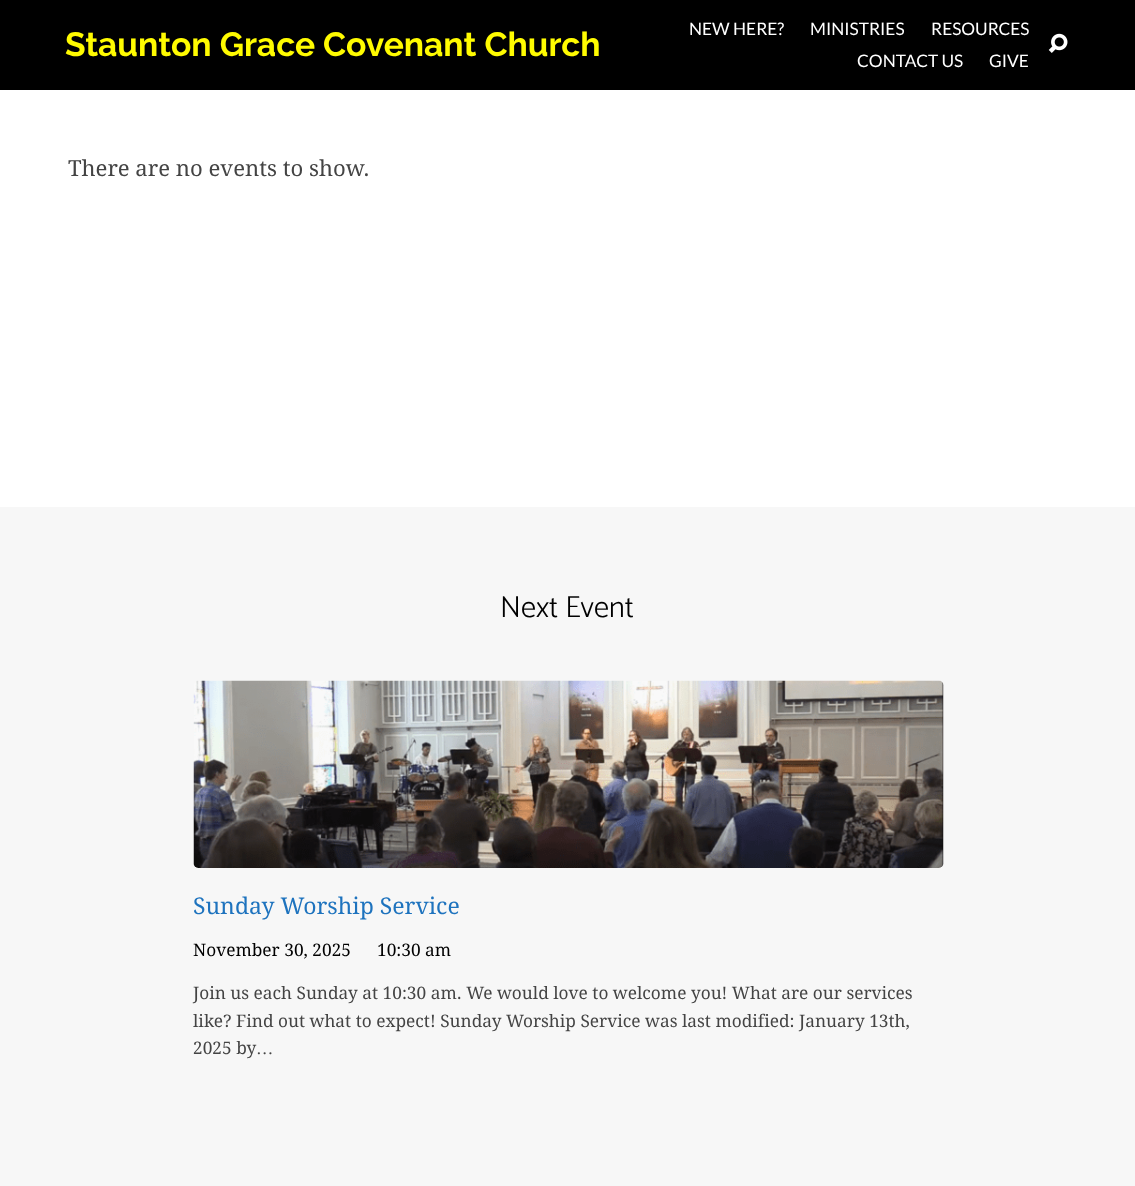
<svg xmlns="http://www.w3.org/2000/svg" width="1135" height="1186">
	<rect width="100%" height="100%" fill="#FFFFFF" />
	<rect x="0" y="0" width="1135" height="90" fill="#000000" />
	<text x="65" y="56" font-family="Raleway" font-size="33.6" font-weight="700" fill="#FFFB00">Staunton Grace Covenant Church</text>
	<g font-family="Lato" font-size="17.3" fill="#FFFFFF">
		<text x="689" y="35">NEW HERE?</text>
		<text x="810" y="35">MINISTRIES</text>
		<text x="931" y="35">RESOURCES</text>
		<text x="857" y="67">CONTACT US</text>
		<text x="989" y="67">GIVE</text>
	</g>
	<image x="1048" y="33" width="20" height="20" href="assets/img1.png" />
	<text x="68" y="176" font-family="Droid Serif" font-size="22.1" fill="#444444">There are no events to show.</text>
	<rect x="0" y="507" width="1135" height="679" fill="#F7F7F7" />
	<text x="500" y="617" font-family="Catamaran" font-size="30.5" font-weight="300" fill="#000000">Next Event</text>
	<image x="193" y="680" width="751" height="188" href="assets/img2.png" />
	<text x="193" y="914" font-family="Droid Serif" font-size="23" fill="#1E73BE">Sunday Worship Service</text>
	<g font-family="Droid Serif" font-size="17.3" fill="#000000">
		<text x="193" y="956">November 30, 2025</text>
		<text x="377" y="956">10:30 am</text>
	</g>
	<g font-family="Droid Serif" font-size="17.3" fill="#444444">
		<text x="193" y="999">Join us each Sunday at 10:30 am. We would love to welcome you! What are our services</text>
		<text x="193" y="1027">like? Find out what to expect! Sunday Worship Service was last modified: January 13th,</text>
		<text x="193" y="1054">2025 by</text>
	</g>
	<text x="256" y="1054" font-family="Liberation Serif" font-size="17.3" fill="#444444">…</text>
</svg>
